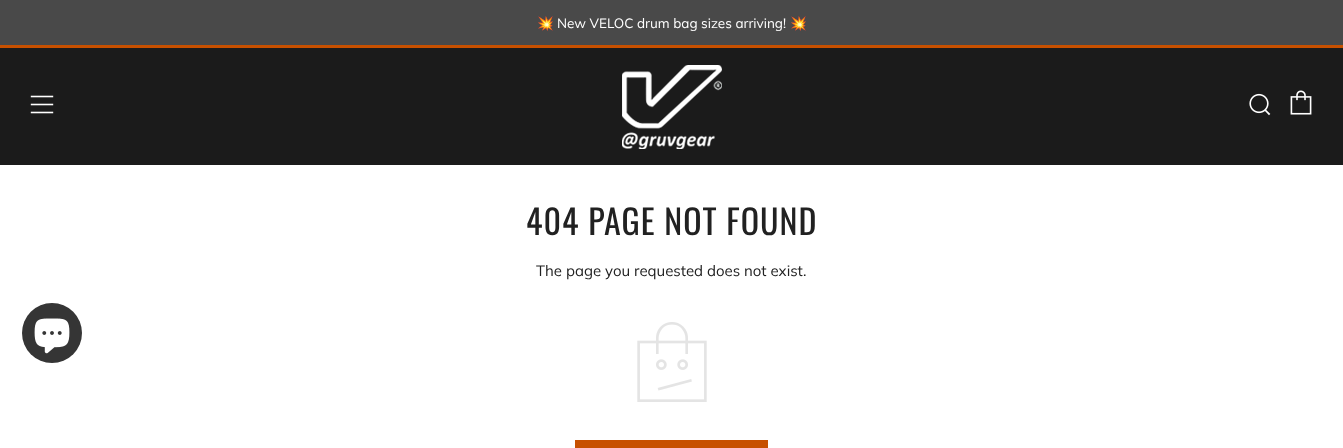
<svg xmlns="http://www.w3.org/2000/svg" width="1343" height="448">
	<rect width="100%" height="100%" fill="#FFFFFF" />
	<rect x="0" y="0" width="1343" height="45" fill="#494949" />
	<text x="537" y="28" font-family="Noto Color Emoji" font-size="13.5" fill="#FFFFFF">💥</text>
	<text x="557" y="28" font-family="Muli" font-size="13.5" fill="#FFFFFF">New VELOC drum bag sizes arriving!</text>
	<text x="790" y="28" font-family="Noto Color Emoji" font-size="13.5" fill="#FFFFFF">💥</text>
	<rect x="0" y="48" width="1343" height="117" fill="#1B1B1B" />
	<rect x="0" y="45" width="1343" height="3" fill="#C75000" />
	<image x="30" y="95" width="24" height="19" href="assets/img1.png" />
	<image x="622" y="65" width="100" height="84" href="assets/img2.png" />
	<image x="1249" y="93" width="22" height="23" href="assets/img3.png" />
	<image x="1290" y="90" width="22" height="25" href="assets/img4.png" />
	<text x="526" y="235" font-family="Oswald" font-size="34" letter-spacing="1" fill="#212121">404 PAGE NOT FOUND</text>
	<text x="536" y="276" font-family="Muli" font-size="15" fill="#212121">The page you requested does not exist.</text>
	<image x="637" y="322" width="70" height="80" href="assets/img5.png" />
	<rect x="575" y="440" width="193" height="8" fill="#C75000" />
	<circle cx="52" cy="333" r="30" fill="#353535" />
	<image x="34" y="318" width="36" height="36" href="assets/img6.png" />
</svg>
